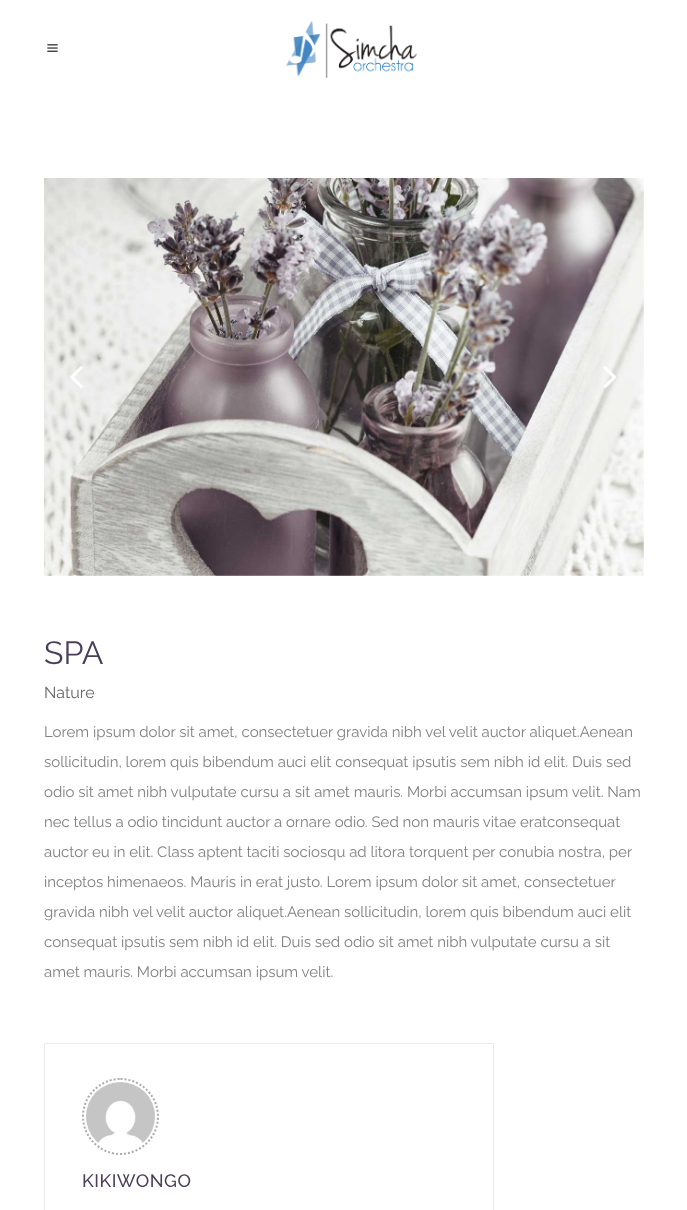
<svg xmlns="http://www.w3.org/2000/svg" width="687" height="1210">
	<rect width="100%" height="100%" fill="#FFFFFF" />
	<image x="47" y="44" width="11" height="8" href="assets/img1.png" />
	<image x="285" y="21" width="132" height="57" href="assets/img2.png" />
	<image x="44" y="178" width="600" height="398" href="assets/img3.png" />
	<image x="70" y="366" width="13" height="22" href="assets/img4.png" />
	<image x="603" y="366" width="13" height="23" href="assets/img5.png" />
	<text x="44" y="664" font-family="Raleway" font-size="32" fill="#4A3E5A">SPA</text>
	<text x="44" y="698" font-family="Raleway" font-size="16" fill="#656565">Nature</text>
	<g font-family="Raleway" font-size="15" fill="#808080">
		<text x="44" y="737">Lorem ipsum dolor sit amet, consectetuer gravida nibh vel velit auctor aliquet.Aenean</text>
		<text x="44" y="767">sollicitudin, lorem quis bibendum auci elit consequat ipsutis sem nibh id elit. Duis sed</text>
		<text x="44" y="797">odio sit amet nibh vulputate cursu a sit amet mauris. Morbi accumsan ipsum velit. Nam</text>
		<text x="44" y="827">nec tellus a odio tincidunt auctor a ornare odio. Sed non mauris vitae eratconsequat</text>
		<text x="44" y="857">auctor eu in elit. Class aptent taciti sociosqu ad litora torquent per conubia nostra, per</text>
		<text x="44" y="887">inceptos himenaeos. Mauris in erat justo. Lorem ipsum dolor sit amet, consectetuer</text>
		<text x="44" y="917">gravida nibh vel velit auctor aliquet.Aenean sollicitudin, lorem quis bibendum auci elit</text>
		<text x="44" y="947">consequat ipsutis sem nibh id elit. Duis sed odio sit amet nibh vulputate cursu a sit</text>
		<text x="44" y="977">amet mauris. Morbi accumsan ipsum velit.</text>
	</g>
	<rect x="44.5" y="1043.5" width="449" height="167" fill="none" stroke="#EBEBEB" />
	<path d="M120.5 1079C141 1079 158 1096 158 1116.5C158 1137 141 1154 120.5 1154C100 1154 83 1137 83 1116.5C83 1096 100 1079 120.5 1079Z" fill="none" stroke="#ABABAB" stroke-width="2" stroke-dasharray="2 2" />
	<image x="86" y="1082" width="69" height="61" href="assets/img6.png" />
	<text x="82" y="1187" font-family="Raleway" font-size="18" font-weight="500" letter-spacing="0.5" fill="#4A3E5A">KIKIWONGO</text>
</svg>
